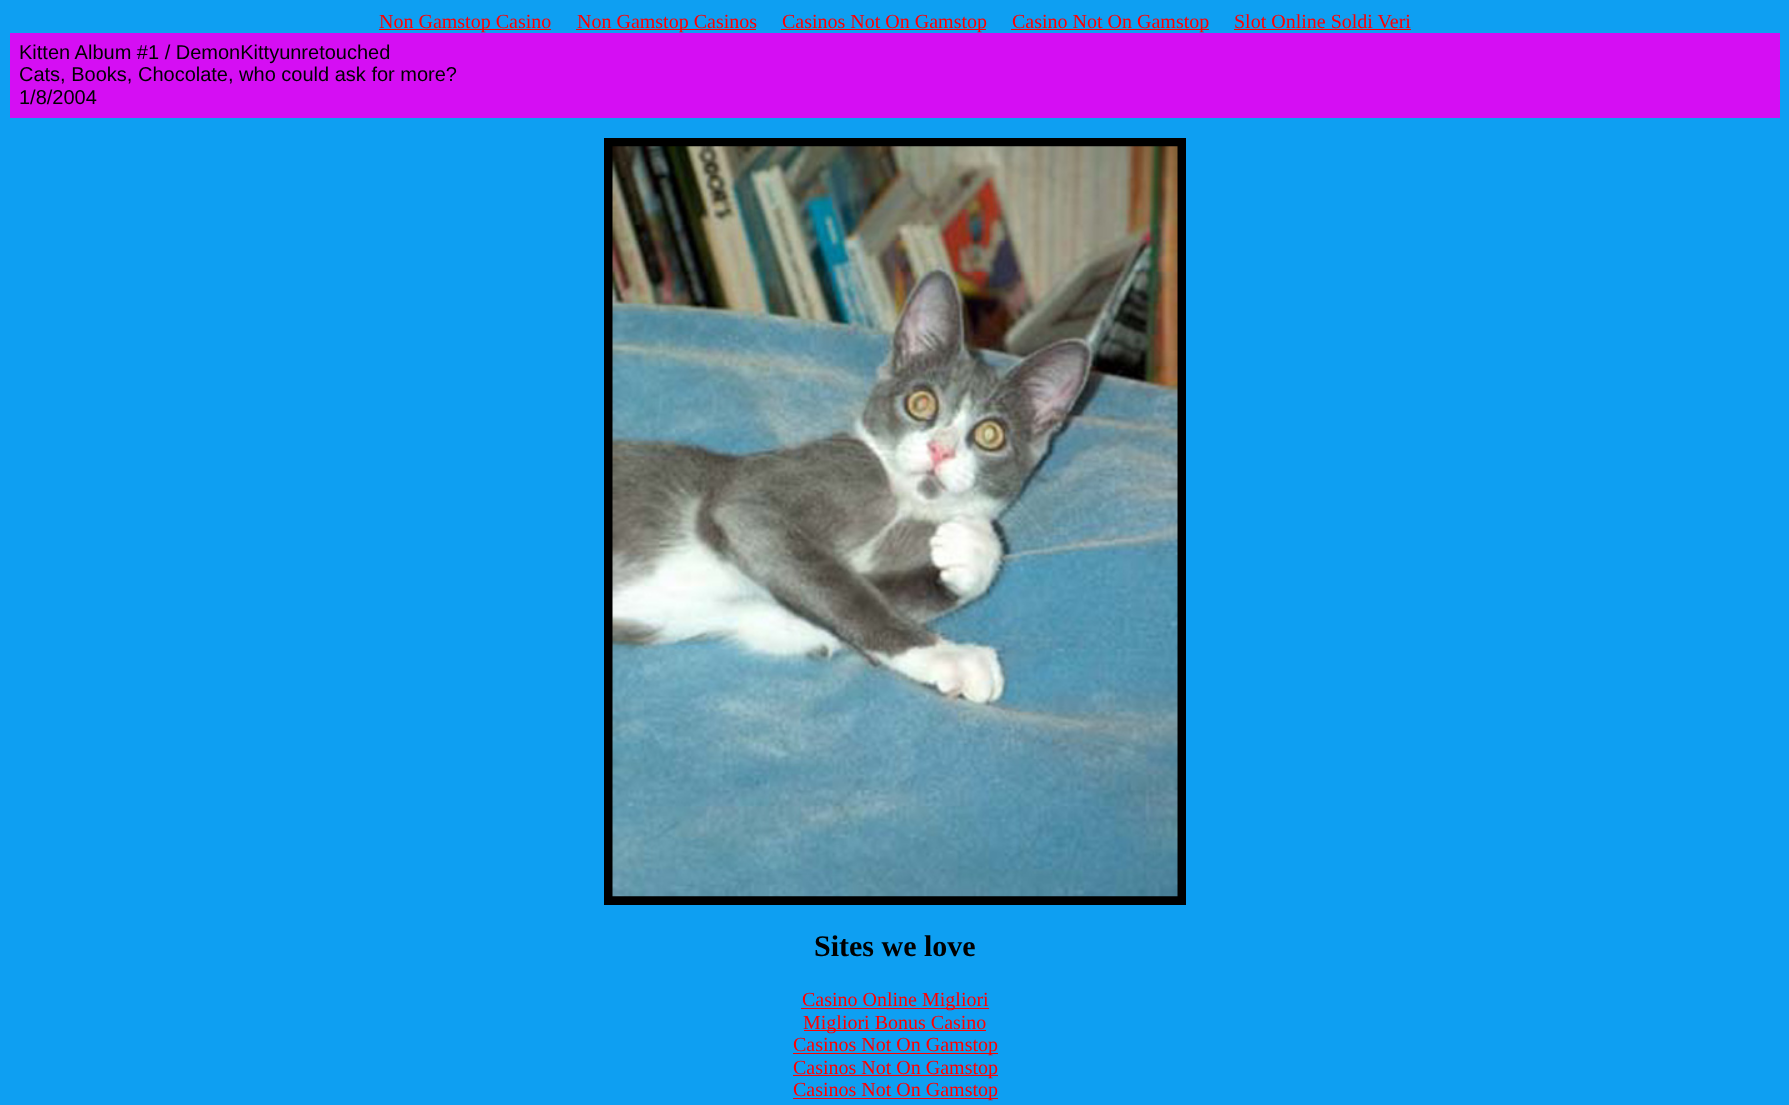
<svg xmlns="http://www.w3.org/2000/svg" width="1789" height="1105">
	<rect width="100%" height="100%" fill="#0E9FF2" />
	<rect x="379" y="29" width="172" height="1" fill="#FF0000" />
	<text x="379" y="28" font-family="Liberation Serif" font-size="20" fill="#FF0000">Non Gamstop Casino</text>
	<rect x="576" y="29" width="180" height="1" fill="#FF0000" />
	<text x="577" y="28" font-family="Liberation Serif" font-size="20" fill="#FF0000">Non Gamstop Casinos</text>
	<rect x="781" y="29" width="205" height="1" fill="#FF0000" />
	<text x="782" y="28" font-family="Liberation Serif" font-size="20" fill="#FF0000">Casinos Not On Gamstop</text>
	<rect x="1011" y="29" width="198" height="1" fill="#FF0000" />
	<g font-family="Liberation Serif" font-size="20" fill="#FF0000">
		<text x="1012" y="28">Casino Not On Gamstop</text>
		<text x="1234" y="28">Slot Online Soldi Veri</text>
	</g>
	<rect x="1234" y="29" width="177" height="1" fill="#FF0000" />
	<rect x="10" y="33" width="1770" height="85" fill="#D50EF3" />
	<g font-family="Liberation Sans" font-size="20" fill="#000000">
		<text x="19" y="59">Kitten Album #1 / DemonKittyunretouched</text>
		<text x="19" y="81">Cats, Books, Chocolate, who could ask for more?</text>
		<text x="19" y="104">1/8/2004</text>
	</g>
	<rect x="608.5" y="142.5" width="573" height="758" fill="none" stroke="#000000" stroke-width="9" />
	<image x="612" y="146" width="566" height="751" href="assets/img1.png" />
	<text x="814" y="956" font-family="Liberation Serif" font-size="30" font-weight="700" fill="#000000">Sites we love</text>
	<rect x="801" y="1008" width="188" height="1" fill="#FF0000" />
	<text x="802" y="1006" font-family="Liberation Serif" font-size="20" fill="#FF0000">Casino Online Migliori</text>
	<rect x="804" y="1030" width="182" height="1" fill="#FF0000" />
	<text x="803" y="1029" font-family="Liberation Serif" font-size="20" fill="#FF0000">Migliori Bonus Casino</text>
	<rect x="793" y="1053" width="205" height="1" fill="#FF0000" />
	<text x="793" y="1051" font-family="Liberation Serif" font-size="20" fill="#FF0000">Casinos Not On Gamstop</text>
	<rect x="793" y="1075" width="205" height="1" fill="#FF0000" />
	<text x="793" y="1074" font-family="Liberation Serif" font-size="20" fill="#FF0000">Casinos Not On Gamstop</text>
	<rect x="793" y="1098" width="205" height="1" fill="#FF0000" />
	<text x="793" y="1096" font-family="Liberation Serif" font-size="20" fill="#FF0000">Casinos Not On Gamstop</text>
</svg>
